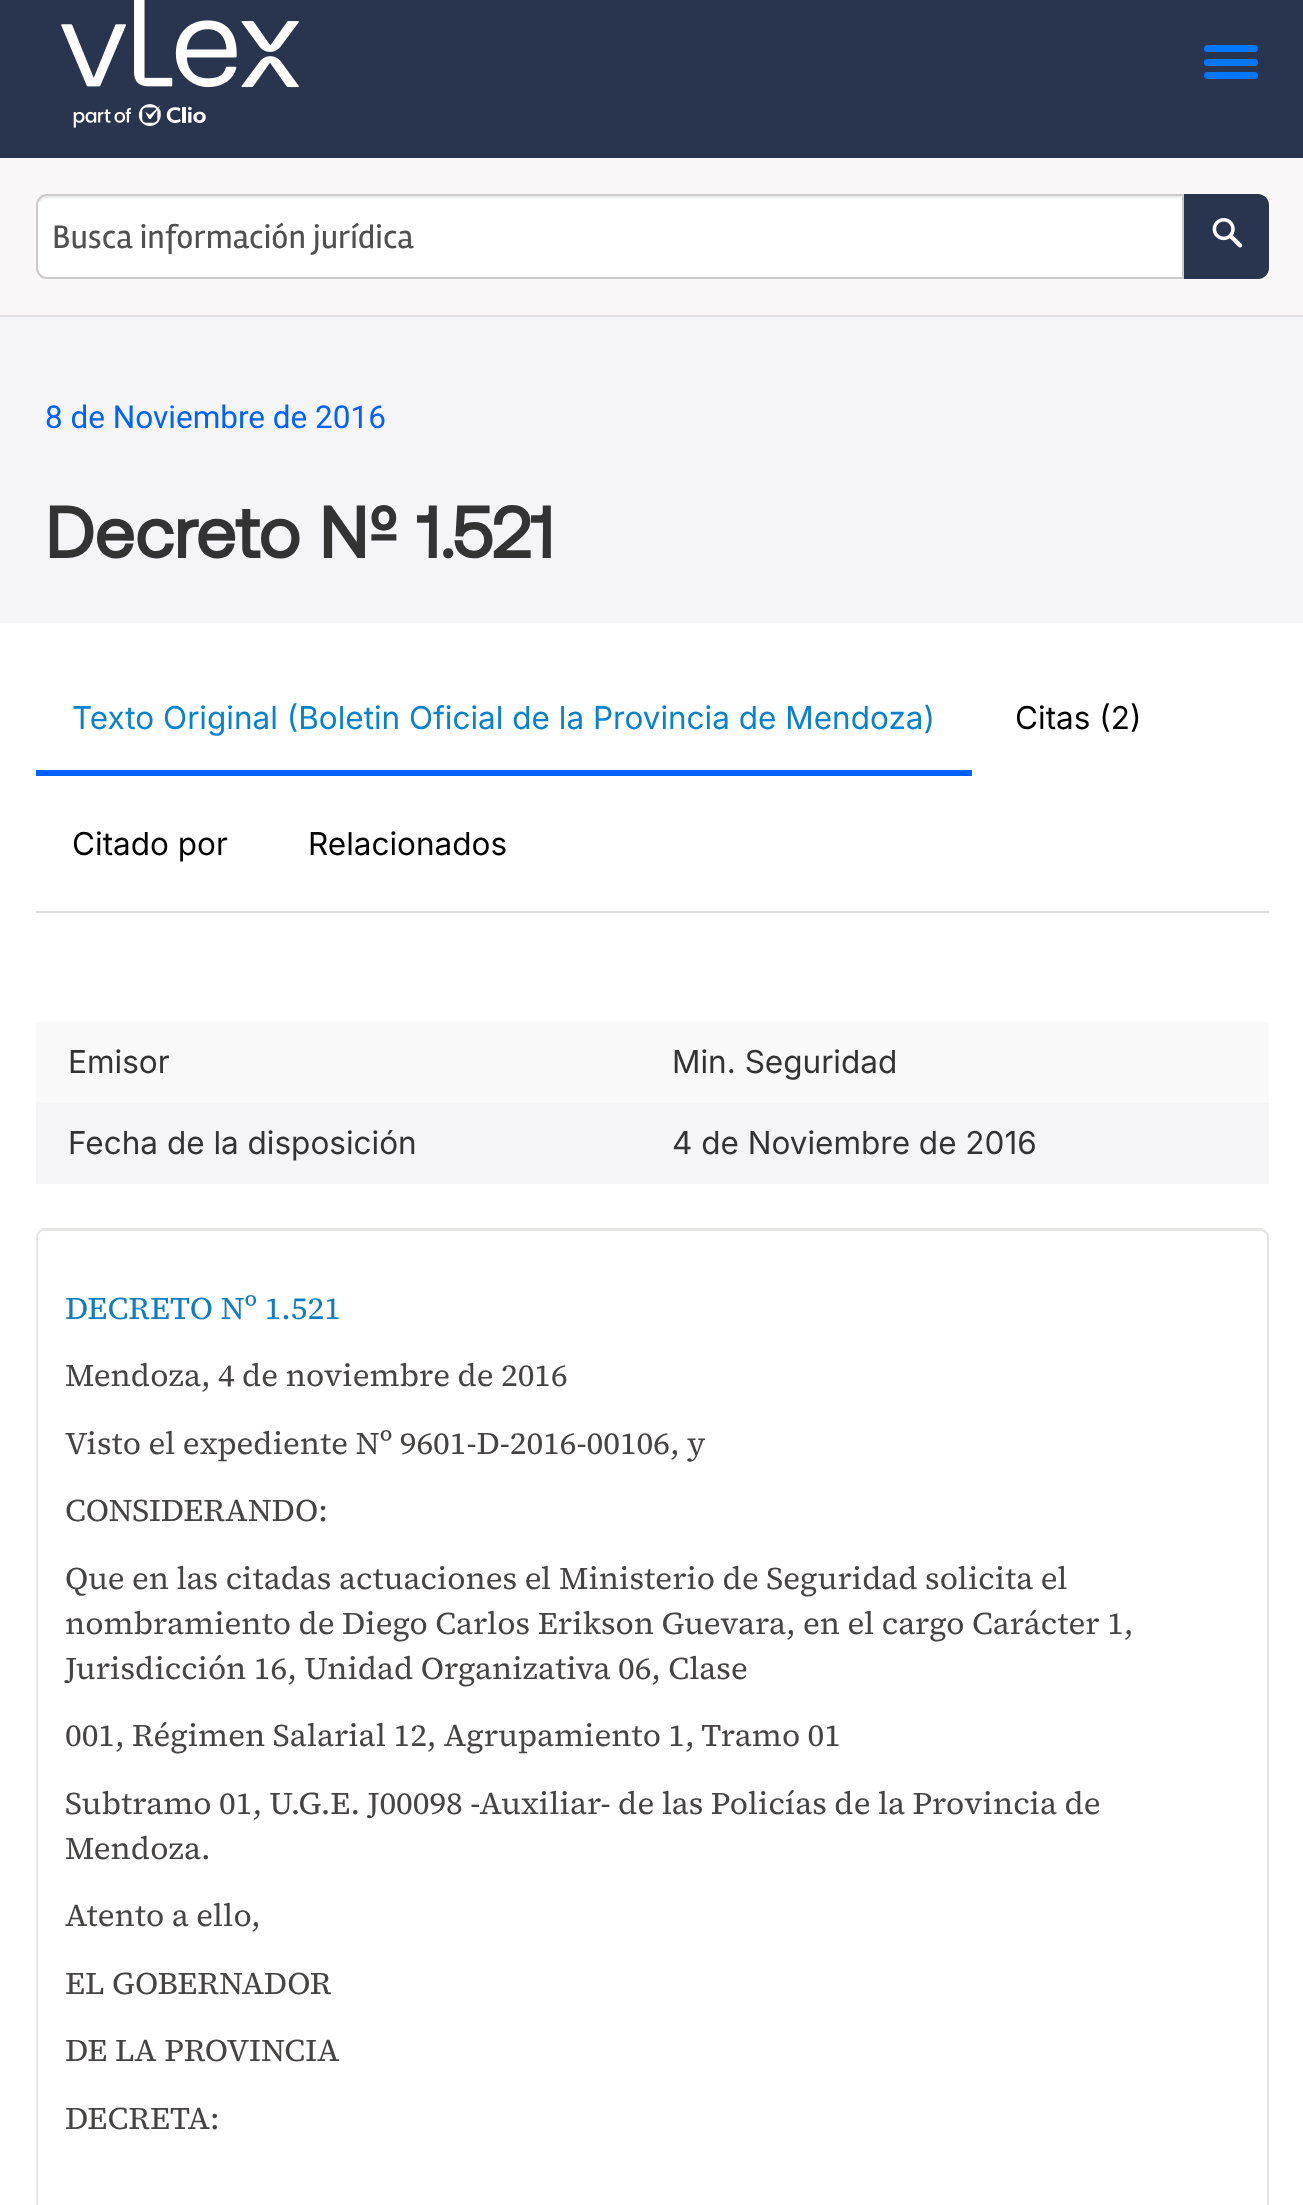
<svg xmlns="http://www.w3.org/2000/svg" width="1303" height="2205">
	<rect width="100%" height="100%" fill="#F5F5F7" />
	<rect x="0" y="0" width="1303" height="158" fill="#29354E" />
	<image x="61" y="0" width="238" height="128" href="assets/img1.png" />
	<rect x="1204" y="59" width="54" height="7" rx="3.5" fill="#0077FF" />
	<rect x="1204" y="45" width="54" height="7" rx="3.5" fill="#0077FF" />
	<rect x="1204" y="72" width="54" height="7" rx="3.5" fill="#0077FF" />
	<rect x="0" y="158" width="1303" height="157" fill="#F9F7F7" />
	<rect x="0" y="315" width="1303" height="2" fill="#E1E1E1" />
	<path d="M47 194H1184V279H47C41 279 36 274 36 268V205C36 199 41 194 47 194Z" fill="#FFFFFF" />
	<path d="M47 198H1181V196H47C41 196 38 201 38 207C38 202 42 198 47 198Z" fill="#ECECEC" />
	<path d="M47 195H1183V278H47C41.5 278 37 273.5 37 268V205C37 199.5 41.5 195 47 195Z" fill="none" stroke="#CCCCCC" stroke-width="2" />
	<text x="52" y="248" font-family="Rambla" font-size="33.75" fill="#505050">Busca información jurídica</text>
	<path d="M1184 194H1258C1264 194 1269 199 1269 205V268C1269 274 1264 279 1258 279H1184Z" fill="#29354E" />
	<image x="1212" y="218" width="31" height="30" href="assets/img2.png" />
	<text x="45" y="428" font-family="Roboto" font-size="31.5" fill="#0161FF">8 de Noviembre de 2016</text>
	<text x="45" y="558" font-family="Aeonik" font-size="72" font-weight="700" fill="#333333">Decreto Nº 1.521</text>
	<rect x="0" y="623" width="1303" height="1582" fill="#FFFFFF" />
	<rect x="36" y="911" width="1233" height="2" fill="#DDDDDD" />
	<text x="72" y="729" font-family="Inter" font-size="31.5" fill="#0882CF">Texto Original (Boletin Oficial de la Provincia de Mendoza)</text>
	<rect x="36" y="770" width="936" height="6" fill="#0161FF" />
	<g font-family="Inter" font-size="31.5" fill="#000000">
		<text x="1015" y="729">Citas (2)</text>
		<text x="72" y="855">Citado por</text>
		<text x="308" y="855">Relacionados</text>
	</g>
	<rect x="36" y="1022" width="1233" height="81" fill="#F9F9F9" />
	<g font-family="Inter" font-size="31.5" fill="#333333">
		<text x="68" y="1073">Emisor</text>
		<text x="672" y="1073">Min. Seguridad</text>
	</g>
	<rect x="36" y="1103" width="1233" height="81" fill="#F5F5F7" />
	<g font-family="Inter" font-size="31.5" fill="#333333">
		<text x="68" y="1154">Fecha de la disposición</text>
		<text x="672" y="1154">4 de Noviembre de 2016</text>
	</g>
	<path d="M45 1228H1260C1265 1228 1269 1233 1269 1238V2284H36V1238C36 1233 40 1228 45 1228ZM45 1231H1260C1264 1231 1267 1234 1267 1238V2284H38V1238C38 1234 41 1231 45 1231Z" fill="#E7E4E4" fill-rule="evenodd" />
	<path d="M45 1231H1260C1264 1231 1267 1234 1267 1238V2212H38V1238C38 1234 41 1231 45 1231Z" fill="#FFFFFF" />
	<text x="65" y="1319" font-family="'Source Serif 4'" font-size="31.5" fill="#127CC1">DECRETO Nº 1.521</text>
	<g font-family="'Source Serif 4'" font-size="31.5" fill="#464343">
		<text x="65" y="1386">Mendoza, 4 de noviembre de 2016</text>
		<text x="65" y="1454">Visto el expediente Nº 9601-D-2016-00106, y</text>
		<text x="65" y="1521">CONSIDERANDO:</text>
		<text x="65" y="1589">Que en las citadas actuaciones el Ministerio de Seguridad solicita el</text>
		<text x="65" y="1634">nombramiento de Diego Carlos Erikson Guevara, en el cargo Carácter 1,</text>
		<text x="65" y="1679">Jurisdicción 16, Unidad Organizativa 06, Clase</text>
		<text x="65" y="1746">001, Régimen Salarial 12, Agrupamiento 1, Tramo 01</text>
		<text x="65" y="1814">Subtramo 01, U.G.E. J00098 -Auxiliar- de las Policías de la Provincia de</text>
		<text x="65" y="1859">Mendoza.</text>
		<text x="65" y="1926">Atento a ello,</text>
		<text x="65" y="1994">EL GOBERNADOR</text>
		<text x="65" y="2061">DE LA PROVINCIA</text>
		<text x="65" y="2129">DECRETA:</text>
	</g>
</svg>
